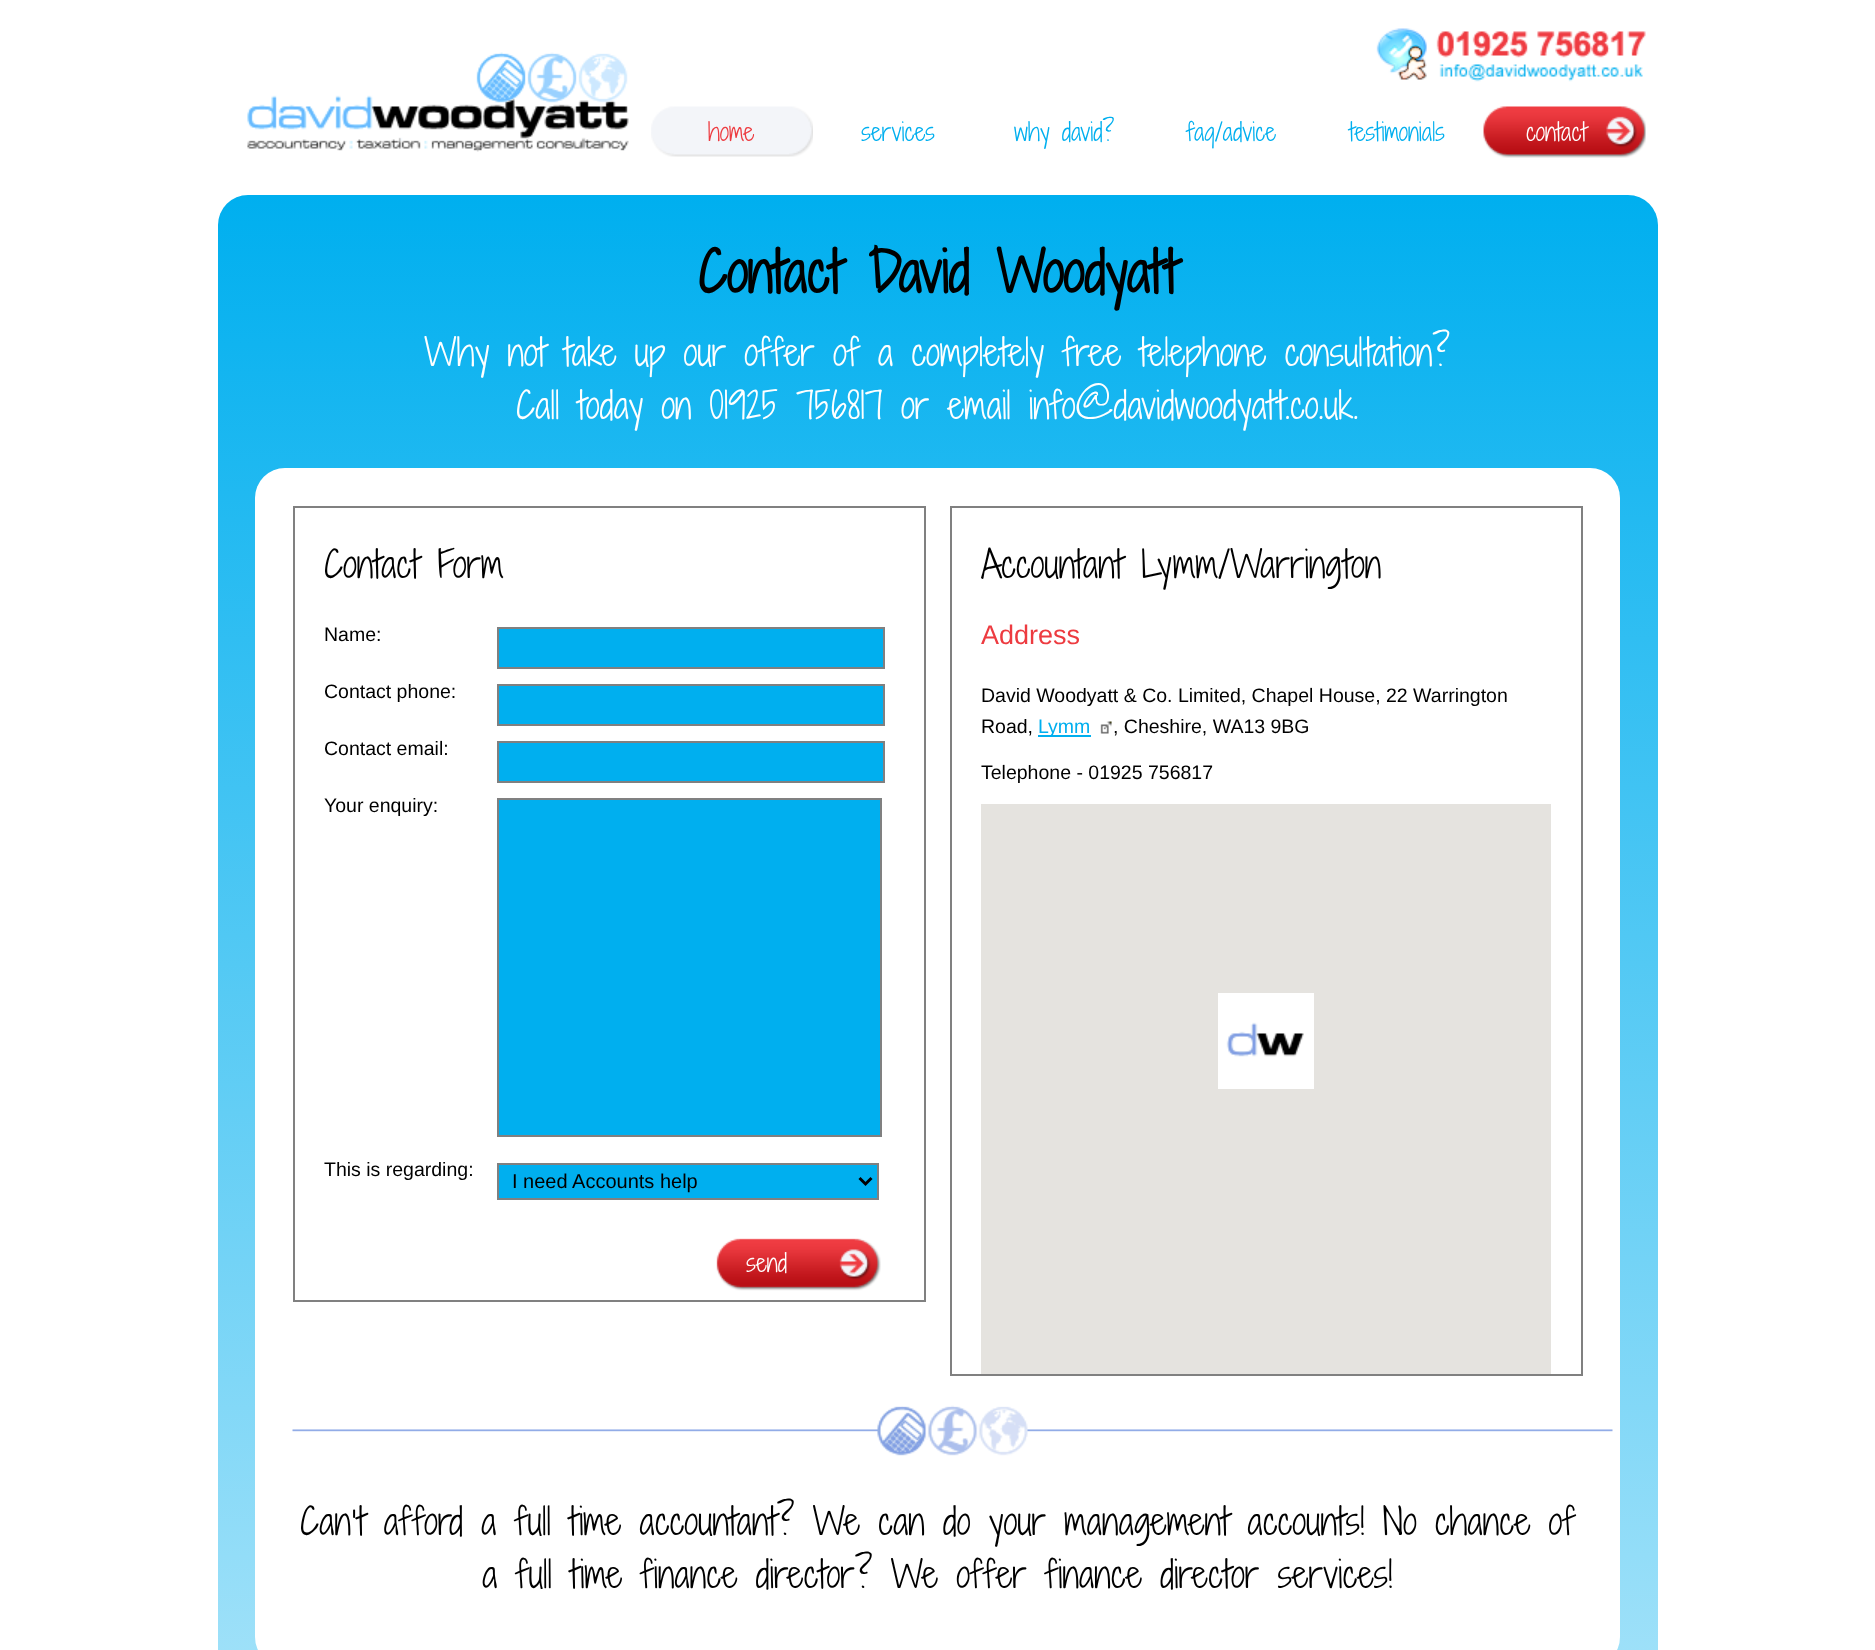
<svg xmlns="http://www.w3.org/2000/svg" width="1875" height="1650">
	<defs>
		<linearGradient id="g1" gradientUnits="userSpaceOnUse" x1="937" y1="195" x2="938" y2="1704"><stop offset="0" stop-color="#00AFEF" /><stop offset="1" stop-color="#A3E2F9" /></linearGradient>
	</defs>
	<rect width="100%" height="100%" fill="#FFFFFF" />
	<image x="247" y="52" width="382" height="100" href="assets/img1.png" />
	<image x="651" y="106" width="162" height="51" href="assets/img2.png" />
	<text x="708" y="141" font-family="Shadows Into Light Two" font-size="24" font-weight="300" fill="#ED3B40">home</text>
	<g font-family="Shadows Into Light Two" font-size="24" font-weight="300" fill="#00AFEF">
		<text x="861" y="141">services</text>
		<text x="1014" y="141">why david?</text>
		<text x="1186" y="141">faq/advice</text>
	</g>
	<image x="1376" y="28" width="270" height="54" href="assets/img3.png" />
	<text x="1349" y="141" font-family="Shadows Into Light Two" font-size="24" font-weight="300" fill="#00AFEF">testimonials</text>
	<image x="1483" y="106" width="163" height="52" href="assets/img4.png" />
	<text x="1526" y="141" font-family="Shadows Into Light Two" font-size="24" font-weight="300" fill="#FFFFFF">contact</text>
	<rect x="218" y="195" width="1440" height="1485" rx="30" fill="url(#g1)" />
	<text x="698" y="293" font-family="Shadows Into Light Two" font-size="54" font-weight="700" fill="#000000">Contact David Woodyatt</text>
	<g font-family="Shadows Into Light Two" font-size="36" font-weight="300" fill="#FFFFFF">
		<text x="424" y="366">Why not take up our offer of a completely free telephone consultation?</text>
		<text x="516" y="419">Call today on 01925 756817 or email info@davidwoodyatt.co.uk.</text>
	</g>
	<rect x="255" y="468" width="1365" height="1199" rx="30" fill="#FFFFFF" />
	<rect x="294" y="507" width="631" height="794" fill="none" stroke="#808080" stroke-width="2" />
	<text x="324" y="578" font-family="Shadows Into Light Two" font-size="36" font-weight="300" fill="#000000">Contact Form</text>
	<text x="324" y="641" font-family="Liberation Sans" font-size="19.5" fill="#000000">Name:</text>
	<rect x="498" y="628" width="386" height="40" fill="#00AFEF" stroke="#808080" stroke-width="2" />
	<text x="324" y="698" font-family="Liberation Sans" font-size="19.5" fill="#000000">Contact phone:</text>
	<rect x="498" y="685" width="386" height="40" fill="#00AFEF" stroke="#808080" stroke-width="2" />
	<text x="324" y="755" font-family="Liberation Sans" font-size="19.5" fill="#000000">Contact email:</text>
	<rect x="498" y="742" width="386" height="40" fill="#00AFEF" stroke="#808080" stroke-width="2" />
	<text x="324" y="812" font-family="Liberation Sans" font-size="19.5" fill="#000000">Your enquiry:</text>
	<rect x="498" y="799" width="383" height="337" fill="#00AFEF" stroke="#808080" stroke-width="2" />
	<text x="324" y="1176" font-family="Liberation Sans" font-size="19.5" fill="#000000">This is regarding:</text>
	<rect x="498" y="1164" width="380" height="35" fill="#00AFEF" stroke="#808080" stroke-width="2" />
	<path d="M859.5 1178L865.5 1184L871.5 1178" fill="none" stroke="#000000" stroke-width="3" />
	<text x="512" y="1188" font-family="Liberation Sans" font-size="20" fill="#000000">I need Accounts help</text>
	<image x="716" y="1238" width="165" height="53" href="assets/img5.png" />
	<text x="746" y="1272" font-family="Shadows Into Light Two" font-size="24" font-weight="300" fill="#FFFFFF">send</text>
	<rect x="951" y="507" width="631" height="868" fill="none" stroke="#808080" stroke-width="2" />
	<text x="981" y="578" font-family="Shadows Into Light Two" font-size="36" font-weight="300" fill="#000000">Accountant Lymm/Warrington</text>
	<text x="981" y="644" font-family="Liberation Sans" font-size="27" fill="#ED3B40">Address</text>
	<g font-family="Liberation Sans" font-size="19.5" fill="#000000">
		<text x="981" y="702">David Woodyatt &amp; Co. Limited, Chapel House, 22 Warrington</text>
		<text x="981" y="733">Road,</text>
	</g>
	<rect x="1038" y="735" width="53" height="2" fill="#00AFEF" />
	<text x="1038" y="733" font-family="Liberation Sans" font-size="19.5" fill="#00AFEF">Lymm</text>
	<image x="1100" y="721" width="12" height="13" href="assets/img6.png" />
	<g font-family="Liberation Sans" font-size="19.5" fill="#000000">
		<text x="1113" y="733">, Cheshire, WA13 9BG</text>
		<text x="981" y="779">Telephone - 01925 756817</text>
	</g>
	<rect x="981" y="804" width="570" height="570" fill="#E5E3DF" />
	<image x="1218" y="993" width="96" height="96" href="assets/img7.png" />
	<image x="292" y="1405" width="1321" height="51" href="assets/img8.png" />
	<g font-family="Shadows Into Light Two" font-size="36" font-weight="300" fill="#000000">
		<text x="300" y="1535">Can’t afford a full time accountant? We can do your management accounts! No chance of</text>
		<text x="482" y="1588">a full time finance director? We offer finance director services!</text>
	</g>
</svg>
